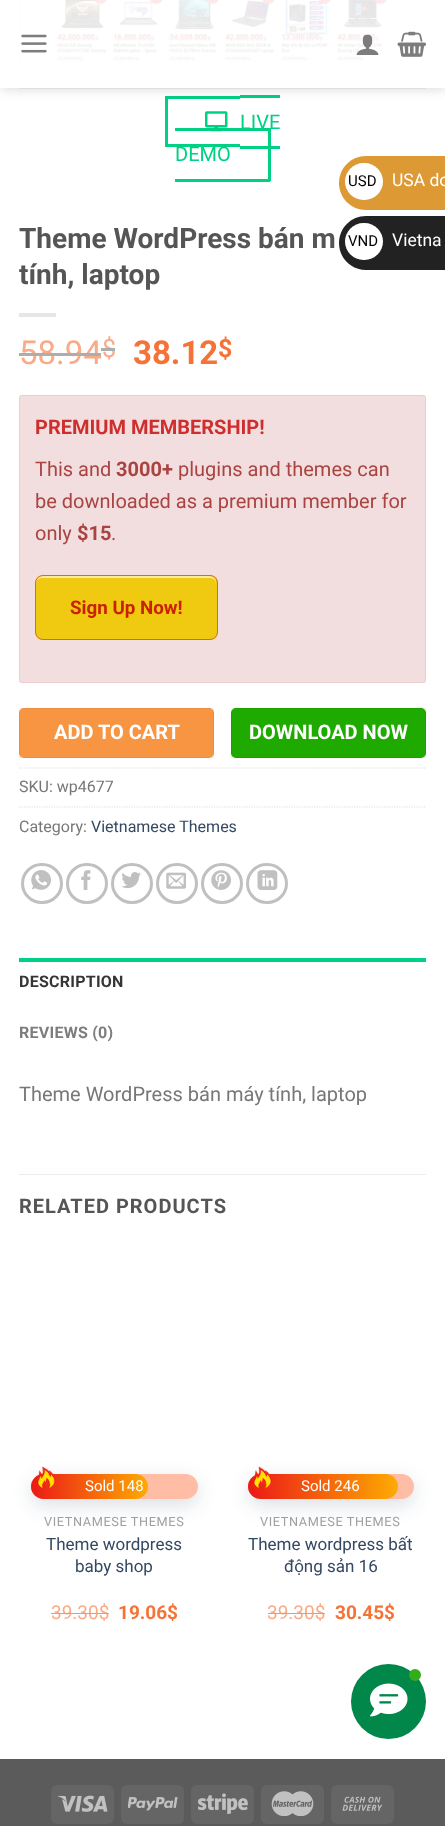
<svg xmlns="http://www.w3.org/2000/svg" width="445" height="1826">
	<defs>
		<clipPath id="clip1"><path d="M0 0H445V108H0ZM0 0H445V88H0Z" clip-rule="evenodd" /></clipPath>
		<linearGradient id="g1" gradientUnits="userSpaceOnUse" x1="31" y1="1486" x2="148" y2="1486"><stop offset="0" stop-color="#EB1917" /><stop offset="1" stop-color="#FEAB01" /></linearGradient>
		<linearGradient id="g2" gradientUnits="userSpaceOnUse" x1="248" y1="1486" x2="398" y2="1486"><stop offset="0" stop-color="#EB1917" /><stop offset="1" stop-color="#FEAB01" /></linearGradient>
	</defs>
	<rect width="100%" height="100%" fill="#FFFFFF" />
	<rect x="19.5" y="-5.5" width="406" height="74" rx="4.5" fill="none" stroke="#ECECEC" />
	<image x="20" y="0" width="405" height="68" href="assets/img4.png" />
	<rect x="165" y="96" width="75" height="3" fill="#00D084" />
	<rect x="165" y="144" width="75" height="3" fill="#00D084" />
	<rect x="165" y="96" width="3" height="50" fill="#00D084" />
	<rect x="240" y="95" width="40" height="3" fill="#00D084" />
	<g clip-path="url(#clip1)">
		<rect x="1" y="1" width="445" height="88" fill="#000000" fill-opacity="0.15" filter="blur(6px)" />
	</g>
	<rect x="0" y="0" width="445" height="88" fill="#FFFFFF" fill-opacity="0.9" />
	<image x="21" y="34" width="26" height="19" href="assets/img1.png" />
	<image x="356" y="34" width="23" height="21" href="assets/img2.png" />
	<image x="397" y="31" width="29" height="26" href="assets/img3.png" />
	<rect x="19" y="88" width="407" height="1" fill="#DFDFDF" />
	<rect x="240" y="146" width="40" height="3" fill="#00D084" />
	<rect x="175" y="128" width="95" height="3" fill="#00D084" />
	<rect x="268" y="128" width="3" height="53" fill="#00D084" />
	<rect x="175" y="179" width="95" height="3" fill="#00D084" />
	<image x="205" y="111" width="23" height="21" href="assets/img5.png" />
	<g font-family="Roboto" font-size="20" fill="#00D084">
		<text x="240" y="129">LIVE</text>
		<text x="175" y="161">DEMO</text>
	</g>
	<g font-family="Roboto" font-size="28" font-weight="700" fill="#555555">
		<text x="19" y="248">Theme WordPress bán m</text>
		<text x="19" y="284">tính, laptop</text>
	</g>
	<rect x="19" y="313" width="37" height="4" fill="#E6E6E6" />
	<text x="19" y="364" font-family="Roboto" font-size="33" fill="#F9AB87">58.94</text>
	<rect x="19" y="353" width="82" height="3" fill="#ADADAD" />
	<text x="102" y="357" font-family="Roboto" font-size="25" fill="#F9AB87">$</text>
	<rect x="101" y="348" width="14" height="3" fill="#ADADAD" />
	<text x="133" y="364" font-family="Roboto" font-size="33" font-weight="700" fill="#F57337">38.12</text>
	<text x="218" y="357" font-family="Roboto" font-size="25" font-weight="700" fill="#F57337">$</text>
	<rect x="19.5" y="395.5" width="406" height="287" rx="2" fill="#F2DEDE" stroke="#EBCCD1" />
	<text x="35" y="434" font-family="Roboto" font-size="20" font-weight="700" fill="#CF2E2E">PREMIUM MEMBERSHIP!</text>
	<text x="35" y="476" font-family="Roboto" font-size="20" fill="#A94442">This and</text>
	<text x="116" y="476" font-family="Roboto" font-size="20" font-weight="700" fill="#A94442">3000+</text>
	<g font-family="Roboto" font-size="20" fill="#A94442">
		<text x="178" y="476">plugins and themes can</text>
		<text x="35" y="508">be downloaded as a premium member for</text>
		<text x="35" y="540">only</text>
	</g>
	<text x="77" y="540" font-family="Roboto" font-size="20" font-weight="700" fill="#A94442">$15</text>
	<text x="111" y="540" font-family="Roboto" font-size="20" fill="#A94442">.</text>
	<rect x="35" y="575" width="183" height="65" rx="8" fill="#F0C911" />
	<path d="M42 578H210C213 578 216 580 216 584V582C216 579 213 576 210 576H42C39 576 36 579 36 582V584C36 580 39 578 42 578Z" fill="#F9ECA0" />
	<rect x="35.5" y="575.5" width="182" height="64" rx="7.5" fill="none" stroke="#E65F44" />
	<text x="70" y="614" font-family="Roboto" font-size="18.75" font-weight="700" fill="#C92200">Sign Up Now!</text>
	<rect x="19" y="708" width="195" height="50" rx="5" fill="#F79543" />
	<rect x="19.5" y="708.5" width="194" height="49" fill="none" stroke="#000000" stroke-opacity="0.05" />
	<text x="54" y="739" font-family="Roboto" font-size="20" font-weight="700" fill="#FFFFFF">ADD TO CART</text>
	<rect x="231" y="708" width="195" height="50" rx="5" fill="#1FAA00" />
	<rect x="231.5" y="708.5" width="194" height="49" fill="none" stroke="#000000" stroke-opacity="0.05" />
	<text x="249" y="739" font-family="Roboto" font-size="20" font-weight="700" fill="#FFFFFF">DOWNLOAD NOW</text>
	<path d="M19 768H426" fill="none" stroke="#DDDDDD" stroke-width="1.2" stroke-dasharray="1.25 1.25" />
	<text x="19" y="792" font-family="Roboto" font-size="16" fill="#777777">SKU: wp4677</text>
	<path d="M19 807H426" fill="none" stroke="#DDDDDD" stroke-width="1.2" stroke-dasharray="1.25 1.25" />
	<text x="19" y="832" font-family="Roboto" font-size="16" fill="#777777">Category:</text>
	<text x="91" y="832" font-family="Roboto" font-size="16" fill="#334862">Vietnamese Themes</text>
	<rect x="22.5" y="864.5" width="39" height="38" rx="19" fill="none" stroke="#C0C0C0" stroke-width="3" />
	<image x="31" y="870" width="20" height="20" href="assets/img6.png" />
	<rect x="67.5" y="864.5" width="39" height="38" rx="19" fill="none" stroke="#C0C0C0" stroke-width="3" />
	<image x="81" y="870" width="10" height="20" href="assets/img7.png" />
	<rect x="112.5" y="864.5" width="39" height="38" rx="19" fill="none" stroke="#C0C0C0" stroke-width="3" />
	<image x="121" y="872" width="20" height="17" href="assets/img8.png" />
	<rect x="157.5" y="864.5" width="39" height="38" rx="19" fill="none" stroke="#C0C0C0" stroke-width="3" />
	<image x="166" y="872" width="20" height="17" href="assets/img9.png" />
	<rect x="202.5" y="864.5" width="39" height="38" rx="19" fill="none" stroke="#C0C0C0" stroke-width="3" />
	<image x="211" y="870" width="20" height="20" href="assets/img10.png" />
	<rect x="247.5" y="864.5" width="39" height="38" rx="19" fill="none" stroke="#C0C0C0" stroke-width="3" />
	<image x="257" y="870" width="21" height="20" href="assets/img11.png" />
	<rect x="19" y="958" width="407" height="4" fill="#00D084" />
	<text x="19" y="987" font-family="Roboto" font-size="16" font-weight="700" letter-spacing="0.25" fill="#363636">DESCRIPTION</text>
	<text x="19" y="1038" font-family="Roboto" font-size="16" font-weight="700" letter-spacing="0.25" fill="#7D7D7D">REVIEWS (0)</text>
	<text x="19" y="1101" font-family="Roboto" font-size="20" fill="#777777">Theme WordPress bán máy tính, laptop</text>
	<rect x="19" y="1174" width="407" height="1" fill="#ECECEC" />
	<text x="19" y="1213" font-family="Roboto" font-size="20" font-weight="700" letter-spacing="1" fill="#555555">RELATED PRODUCTS</text>
	<rect x="31" y="1480" width="167" height="25" rx="12.5" fill="#072142" fill-opacity="0.15" filter="blur(9.5px)" />
	<rect x="31" y="1474" width="167" height="25" rx="12.5" fill="#FFBDA6" />
	<rect x="31" y="1474" width="117" height="25" rx="12.5" fill="url(#g1)" />
	<image x="36" y="1466" width="20" height="23" href="assets/img12.png" />
	<text x="85" y="1491" font-family="Roboto" font-size="15" fill="#FFFFFF">Sold 148</text>
	<text x="44" y="1526" font-family="Roboto" font-size="12.75" letter-spacing="0.6" fill="#9F9F9F">VIETNAMESE THEMES</text>
	<g font-family="Roboto" font-size="17" fill="#334862">
		<text x="46" y="1550">Theme wordpress</text>
		<text x="75" y="1572">baby shop</text>
	</g>
	<text x="51" y="1619" font-family="Roboto" font-size="19" fill="#F9AB87">39.30$</text>
	<rect x="51" y="1613" width="58" height="1" fill="#ADADAD" />
	<text x="118" y="1619" font-family="Roboto" font-size="19" font-weight="700" fill="#F57337">19.06$</text>
	<rect x="248" y="1480" width="166" height="25" rx="12.5" fill="#072142" fill-opacity="0.15" filter="blur(9.5px)" />
	<rect x="248" y="1474" width="166" height="25" rx="12.5" fill="#FFBDA6" />
	<rect x="248" y="1474" width="150" height="25" rx="12.5" fill="url(#g2)" />
	<image x="253" y="1466" width="19" height="23" href="assets/img13.png" />
	<text x="301" y="1491" font-family="Roboto" font-size="15" fill="#FFFFFF">Sold 246</text>
	<text x="260" y="1526" font-family="Roboto" font-size="12.75" letter-spacing="0.6" fill="#9F9F9F">VIETNAMESE THEMES</text>
	<g font-family="Roboto" font-size="17" fill="#334862">
		<text x="248" y="1550">Theme wordpress bất</text>
		<text x="284" y="1572">động sản 16</text>
	</g>
	<text x="267" y="1619" font-family="Roboto" font-size="19" fill="#F9AB87">39.30$</text>
	<rect x="268" y="1613" width="57" height="1" fill="#ADADAD" />
	<text x="335" y="1619" font-family="Roboto" font-size="19" font-weight="700" fill="#F57337">30.45$</text>
	<rect x="0" y="1759" width="445" height="67" fill="#5B5B5B" />
	<rect x="51" y="1785" width="63" height="39" rx="6" fill="#656565" />
	<image x="58" y="1795" width="50" height="17" href="assets/img14.png" />
	<rect x="121" y="1785" width="63" height="39" rx="6" fill="#656565" />
	<image x="128" y="1797" width="50" height="14" href="assets/img15.png" />
	<rect x="191" y="1785" width="63" height="39" rx="6" fill="#656565" />
	<image x="198" y="1793" width="50" height="22" href="assets/img16.png" />
	<rect x="261" y="1785" width="63" height="39" rx="6" fill="#656565" />
	<image x="271" y="1791" width="43" height="25" href="assets/img17.png" />
	<rect x="331" y="1785" width="63" height="39" rx="6" fill="#656565" />
	<image x="342" y="1796" width="41" height="15" href="assets/img18.png" />
	<path d="M366 156H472V210H366C351 210 339 198 339 183C339 168 351 156 366 156Z" fill="#DD9933" />
	<rect x="345" y="163" width="38" height="37" rx="18.5" fill="#FFFFFF" />
	<text x="348" y="186" font-family="Roboto" font-size="15" fill="#000000">USD</text>
	<text x="392" y="186" font-family="Roboto" font-size="17.5" fill="#FFFFFF">USA do</text>
	<path d="M366 216H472V270H366C351 270 339 258 339 243C339 228 351 216 366 216Z" fill="#222222" />
	<rect x="345" y="223" width="38" height="37" rx="18.5" fill="#FFFFFF" />
	<text x="348" y="246" font-family="Roboto" font-size="15" fill="#000000">VND</text>
	<text x="392" y="246" font-family="Roboto" font-size="17.5" fill="#FFFFFF">Vietna</text>
	<circle cx="388.5" cy="1701.5" r="37.5" fill="#008749" />
	<circle cx="415" cy="1675" r="6" fill="#35AC19" />
	<image x="370" y="1683" width="38" height="34" href="assets/img19.png" />
</svg>
